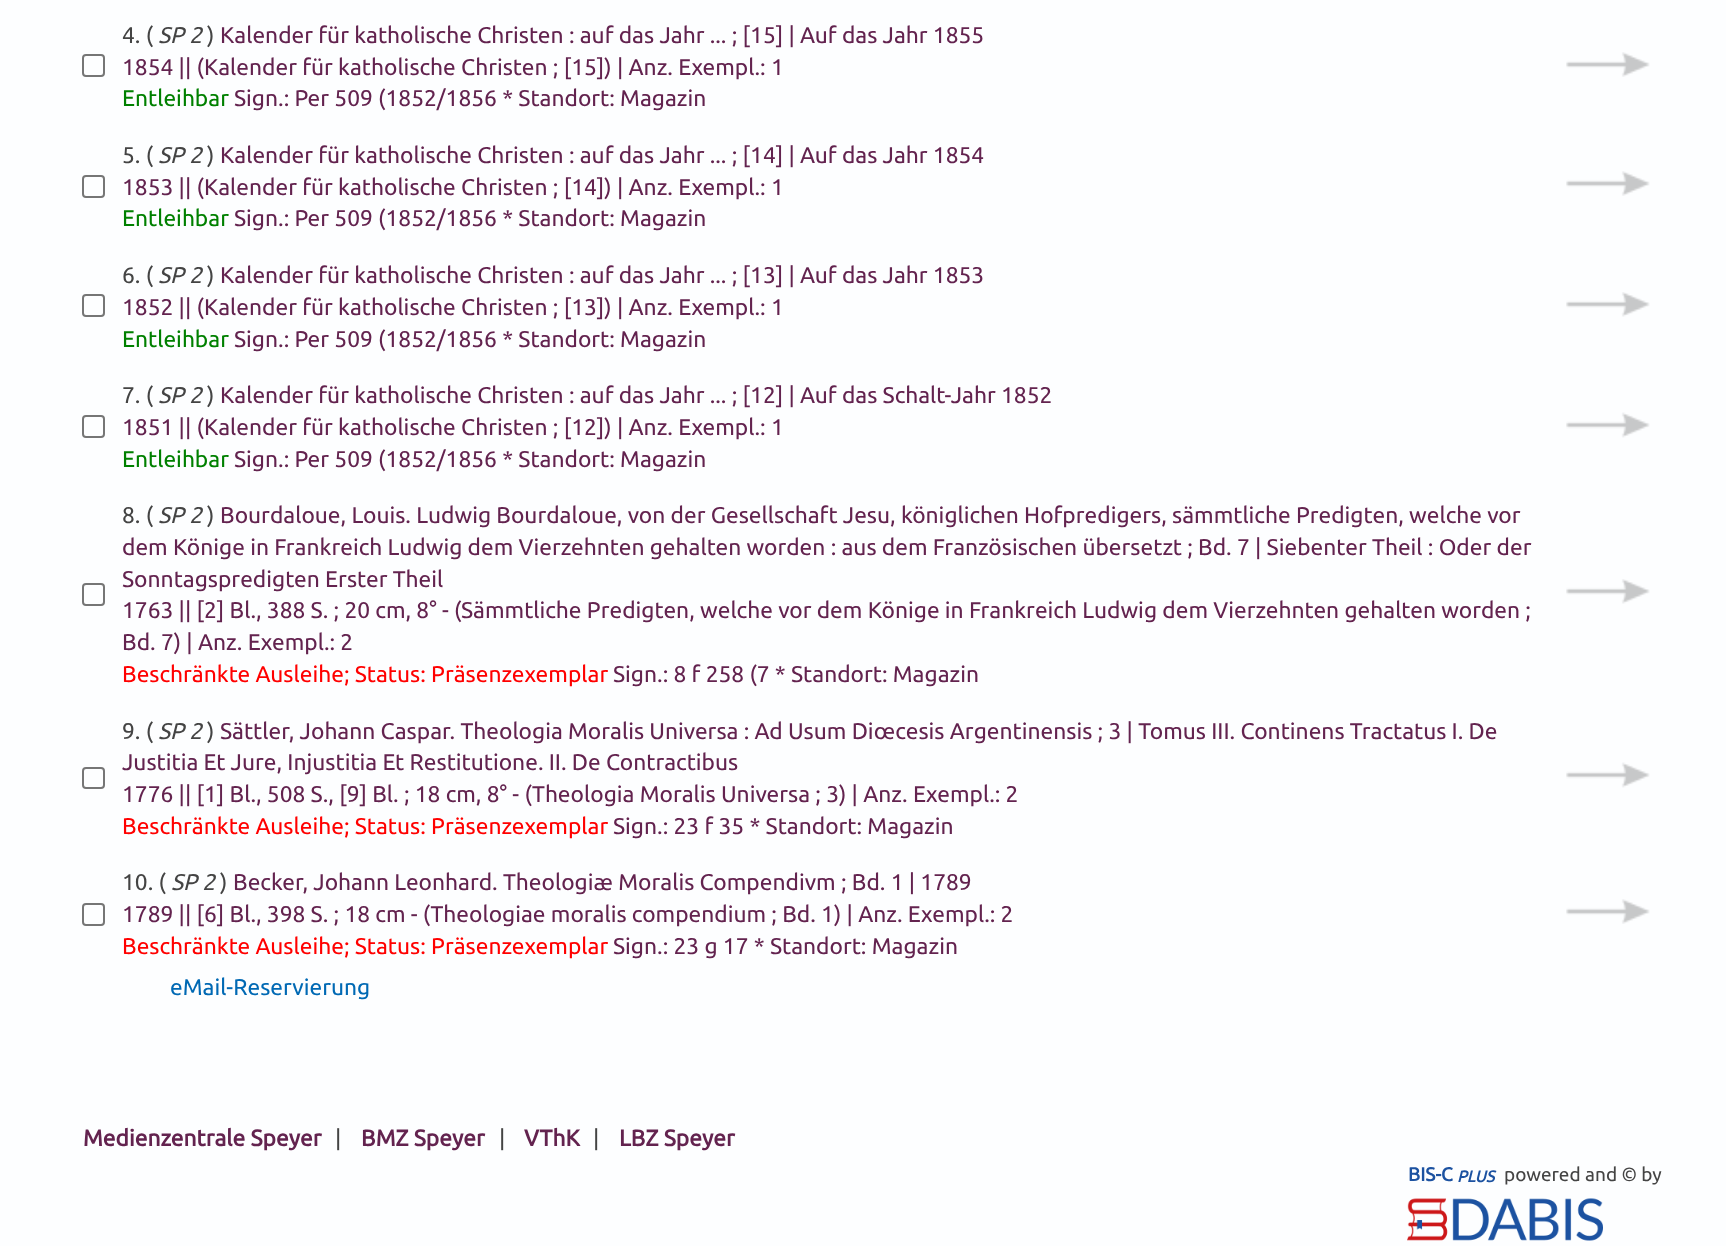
<svg xmlns="http://www.w3.org/2000/svg" width="1726" height="1246">
	<rect width="100%" height="100%" fill="#FDFEFF" />
	<rect x="83" y="55" width="21" height="21" rx="3" fill="none" stroke="#767676" stroke-width="2" />
	<text x="122" y="43" font-family="Ubuntu" font-size="22.75" fill="#444444">4. (</text>
	<text x="158" y="43" font-family="Ubuntu" font-size="22.75" font-style="italic" fill="#444444">SP 2</text>
	<text x="207" y="43" font-family="Ubuntu" font-size="22.75" fill="#444444">)</text>
	<g font-family="Ubuntu" font-size="22.75" fill="#63234F">
		<text x="220" y="43">Kalender für katholische Christen : auf das Jahr ... ; [15] | Auf das Jahr 1855</text>
		<text x="122" y="75">1854 || (Kalender für katholische Christen ; [15]) | Anz. Exempl.: 1</text>
	</g>
	<text x="122" y="106" font-family="Ubuntu" font-size="22.75" fill="#008000">Entleihbar</text>
	<text x="234" y="106" font-family="Ubuntu" font-size="22.75" fill="#63234F">Sign.: Per 509 (1852/1856 * Standort: Magazin</text>
	<image x="1566" y="52" width="84" height="25" href="assets/img1.png" />
	<rect x="83" y="176" width="21" height="21" rx="3" fill="none" stroke="#767676" stroke-width="2" />
	<text x="122" y="163" font-family="Ubuntu" font-size="22.75" fill="#444444">5. (</text>
	<text x="158" y="163" font-family="Ubuntu" font-size="22.75" font-style="italic" fill="#444444">SP 2</text>
	<text x="207" y="163" font-family="Ubuntu" font-size="22.75" fill="#444444">)</text>
	<g font-family="Ubuntu" font-size="22.75" fill="#63234F">
		<text x="220" y="163">Kalender für katholische Christen : auf das Jahr ... ; [14] | Auf das Jahr 1854</text>
		<text x="122" y="195">1853 || (Kalender für katholische Christen ; [14]) | Anz. Exempl.: 1</text>
	</g>
	<text x="122" y="226" font-family="Ubuntu" font-size="22.75" fill="#008000">Entleihbar</text>
	<text x="234" y="226" font-family="Ubuntu" font-size="22.75" fill="#63234F">Sign.: Per 509 (1852/1856 * Standort: Magazin</text>
	<image x="1566" y="171" width="84" height="25" href="assets/img2.png" />
	<rect x="83" y="295" width="21" height="21" rx="3" fill="none" stroke="#767676" stroke-width="2" />
	<text x="122" y="283" font-family="Ubuntu" font-size="22.75" fill="#444444">6. (</text>
	<text x="158" y="283" font-family="Ubuntu" font-size="22.75" font-style="italic" fill="#444444">SP 2</text>
	<text x="207" y="283" font-family="Ubuntu" font-size="22.75" fill="#444444">)</text>
	<g font-family="Ubuntu" font-size="22.75" fill="#63234F">
		<text x="220" y="283">Kalender für katholische Christen : auf das Jahr ... ; [13] | Auf das Jahr 1853</text>
		<text x="122" y="315">1852 || (Kalender für katholische Christen ; [13]) | Anz. Exempl.: 1</text>
	</g>
	<text x="122" y="347" font-family="Ubuntu" font-size="22.75" fill="#008000">Entleihbar</text>
	<text x="234" y="347" font-family="Ubuntu" font-size="22.75" fill="#63234F">Sign.: Per 509 (1852/1856 * Standort: Magazin</text>
	<image x="1566" y="292" width="84" height="25" href="assets/img3.png" />
	<rect x="83" y="416" width="21" height="21" rx="3" fill="none" stroke="#767676" stroke-width="2" />
	<text x="122" y="403" font-family="Ubuntu" font-size="22.75" fill="#444444">7. (</text>
	<text x="158" y="403" font-family="Ubuntu" font-size="22.75" font-style="italic" fill="#444444">SP 2</text>
	<text x="207" y="403" font-family="Ubuntu" font-size="22.75" fill="#444444">)</text>
	<g font-family="Ubuntu" font-size="22.75" fill="#63234F">
		<text x="220" y="403">Kalender für katholische Christen : auf das Jahr ... ; [12] | Auf das Schalt-Jahr 1852</text>
		<text x="122" y="435">1851 || (Kalender für katholische Christen ; [12]) | Anz. Exempl.: 1</text>
	</g>
	<text x="122" y="467" font-family="Ubuntu" font-size="22.75" fill="#008000">Entleihbar</text>
	<text x="234" y="467" font-family="Ubuntu" font-size="22.75" fill="#63234F">Sign.: Per 509 (1852/1856 * Standort: Magazin</text>
	<image x="1566" y="412" width="84" height="26" href="assets/img4.png" />
	<rect x="83" y="584" width="21" height="21" rx="3" fill="none" stroke="#767676" stroke-width="2" />
	<text x="122" y="523" font-family="Ubuntu" font-size="22.75" fill="#444444">8. (</text>
	<text x="158" y="523" font-family="Ubuntu" font-size="22.75" font-style="italic" fill="#444444">SP 2</text>
	<text x="207" y="523" font-family="Ubuntu" font-size="22.75" fill="#444444">)</text>
	<g font-family="Ubuntu" font-size="22.75" fill="#63234F">
		<text x="220" y="523">Bourdaloue, Louis. Ludwig Bourdaloue, von der Gesellschaft Jesu, königlichen Hofpredigers, sämmtliche Predigten, welche vor</text>
		<text x="122" y="555">dem Könige in Frankreich Ludwig dem Vierzehnten gehalten worden : aus dem Französischen übersetzt ; Bd. 7 | Siebenter Theil : Oder der</text>
		<text x="122" y="587">Sonntagspredigten Erster Theil</text>
		<text x="122" y="618">1763 || [2] Bl., 388 S. ; 20 cm, 8° - (Sämmtliche Predigten, welche vor dem Könige in Frankreich Ludwig dem Vierzehnten gehalten worden ;</text>
		<text x="122" y="650">Bd. 7) | Anz. Exempl.: 2</text>
	</g>
	<text x="122" y="682" font-family="Ubuntu" font-size="22.75" fill="#FF0000">Beschränkte Ausleihe; Status: Präsenzexemplar</text>
	<text x="613" y="682" font-family="Ubuntu" font-size="22.75" fill="#63234F">Sign.: 8 f 258 (7 * Standort: Magazin</text>
	<image x="1566" y="579" width="84" height="25" href="assets/img5.png" />
	<rect x="83" y="768" width="21" height="20" rx="3" fill="none" stroke="#767676" stroke-width="2" />
	<text x="122" y="739" font-family="Ubuntu" font-size="22.75" fill="#444444">9. (</text>
	<text x="158" y="739" font-family="Ubuntu" font-size="22.75" font-style="italic" fill="#444444">SP 2</text>
	<text x="207" y="739" font-family="Ubuntu" font-size="22.75" fill="#444444">)</text>
	<g font-family="Ubuntu" font-size="22.75" fill="#63234F">
		<text x="220" y="739">Sättler, Johann Caspar. Theologia Moralis Universa : Ad Usum Diœcesis Argentinensis ; 3 | Tomus III. Continens Tractatus I. De</text>
		<text x="122" y="770">Justitia Et Jure, Injustitia Et Restitutione. II. De Contractibus</text>
		<text x="122" y="802">1776 || [1] Bl., 508 S., [9] Bl. ; 18 cm, 8° - (Theologia Moralis Universa ; 3) | Anz. Exempl.: 2</text>
	</g>
	<text x="122" y="834" font-family="Ubuntu" font-size="22.75" fill="#FF0000">Beschränkte Ausleihe; Status: Präsenzexemplar</text>
	<text x="613" y="834" font-family="Ubuntu" font-size="22.75" fill="#63234F">Sign.: 23 f 35 * Standort: Magazin</text>
	<image x="1566" y="762" width="84" height="26" href="assets/img6.png" />
	<rect x="83" y="904" width="21" height="21" rx="3" fill="none" stroke="#767676" stroke-width="2" />
	<text x="122" y="890" font-family="Ubuntu" font-size="22.75" fill="#444444">10. (</text>
	<text x="171" y="890" font-family="Ubuntu" font-size="22.75" font-style="italic" fill="#444444">SP 2</text>
	<text x="220" y="890" font-family="Ubuntu" font-size="22.75" fill="#444444">)</text>
	<g font-family="Ubuntu" font-size="22.75" fill="#63234F">
		<text x="233" y="890">Becker, Johann Leonhard. Theologiæ Moralis Compendivm ; Bd. 1 | 1789</text>
		<text x="122" y="922">1789 || [6] Bl., 398 S. ; 18 cm - (Theologiae moralis compendium ; Bd. 1) | Anz. Exempl.: 2</text>
	</g>
	<text x="122" y="954" font-family="Ubuntu" font-size="22.75" fill="#FF0000">Beschränkte Ausleihe; Status: Präsenzexemplar</text>
	<text x="613" y="954" font-family="Ubuntu" font-size="22.75" fill="#63234F">Sign.: 23 g 17 * Standort: Magazin</text>
	<image x="1566" y="899" width="84" height="25" href="assets/img7.png" />
	<text x="170" y="995" font-family="Ubuntu" font-size="22.75" fill="#0069B4">eMail-Reservierung</text>
	<text x="83" y="1146" font-family="Ubuntu" font-size="22.75" font-weight="700" fill="#63234F">Medienzentrale Speyer</text>
	<text x="335" y="1146" font-family="Ubuntu" font-size="22.75" fill="#444444">|</text>
	<text x="361" y="1146" font-family="Ubuntu" font-size="22.75" font-weight="700" fill="#63234F">BMZ Speyer</text>
	<text x="499" y="1146" font-family="Ubuntu" font-size="22.75" fill="#444444">|</text>
	<text x="524" y="1146" font-family="Ubuntu" font-size="22.75" font-weight="700" fill="#63234F">VThK</text>
	<text x="593" y="1146" font-family="Ubuntu" font-size="22.75" fill="#444444">|</text>
	<text x="619" y="1146" font-family="Ubuntu" font-size="22.75" font-weight="700" fill="#63234F">LBZ Speyer</text>
	<text x="1408" y="1181" font-family="Ubuntu" font-size="19" font-weight="700" fill="#1C52A1">BIS-C</text>
	<text x="1457" y="1182" font-family="Ubuntu" font-size="16" font-weight="700" font-style="italic" fill="#1C52A1">PLUS</text>
	<text x="1504" y="1181" font-family="Ubuntu" font-size="19" fill="#444444">powered and © by</text>
	<image x="1407" y="1198" width="196" height="43" href="assets/img8.png" />
</svg>
